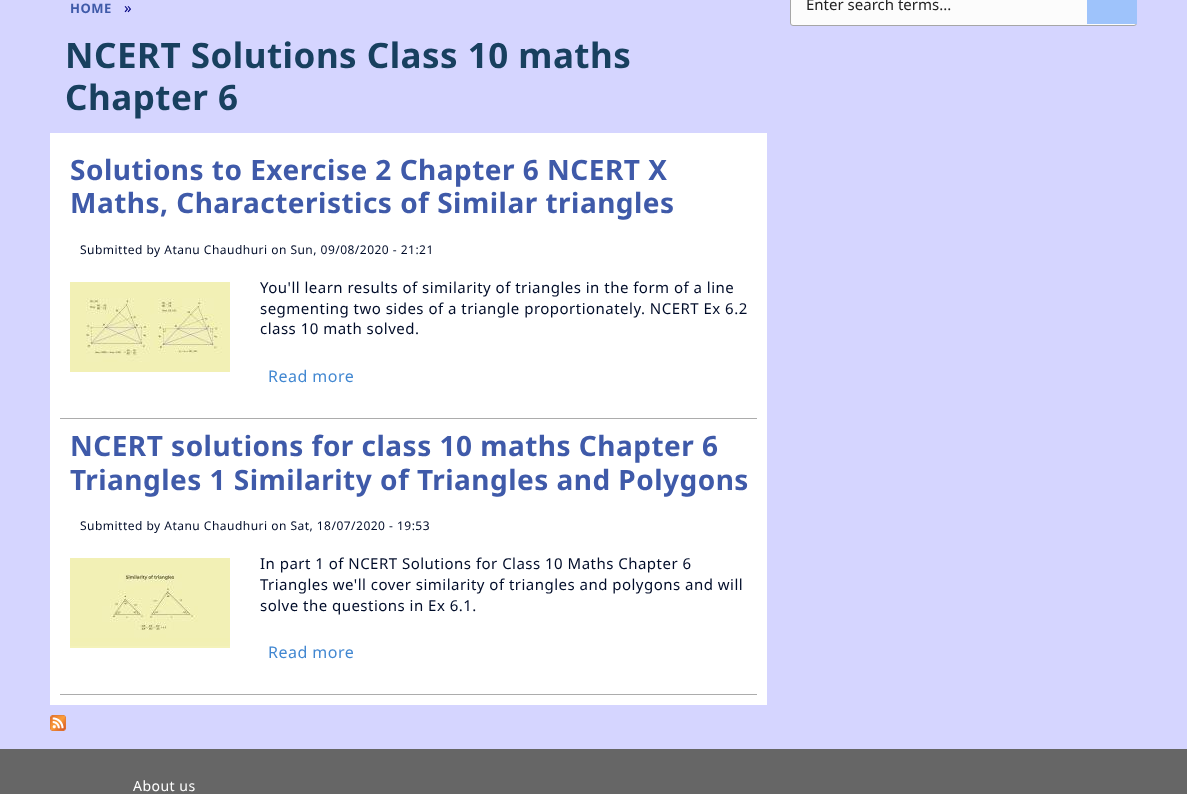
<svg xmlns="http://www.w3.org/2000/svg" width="1187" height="794">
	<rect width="100%" height="100%" fill="#D5D5FF" />
	<text x="70" y="13" font-family="Noto Sans" font-size="13" font-weight="700" letter-spacing="0.48" fill="#3F5AA9">HOME</text>
	<text x="124" y="13" font-family="Noto Sans" font-size="15" letter-spacing="0.48" fill="#000080">»</text>
	<g font-family="Noto Sans" font-size="35" font-weight="700" letter-spacing="0.48" fill="#18405F">
		<text x="65" y="68">NCERT Solutions Class 10 maths</text>
		<text x="65" y="110">Chapter 6</text>
	</g>
	<rect x="50" y="133" width="717" height="572" fill="#FFFFFF" />
	<rect x="60" y="418" width="697" height="1" fill="#ACACAC" />
	<g font-family="Noto Sans" font-size="28" font-weight="700" letter-spacing="0.48" fill="#3F5AA9">
		<text x="70" y="180">Solutions to Exercise 2 Chapter 6 NCERT X</text>
		<text x="70" y="213">Maths, Characteristics of Similar triangles</text>
	</g>
	<text x="80" y="254" font-family="Noto Sans" font-size="12" letter-spacing="0.48" fill="#000C29">Submitted by Atanu Chaudhuri on Sun, 09/08/2020 - 21:21</text>
	<image x="70" y="282" width="160" height="90" href="assets/img1.png" />
	<g font-family="Noto Sans" font-size="15" letter-spacing="0.48" fill="#000C29">
		<text x="260" y="293">You'll learn results of similarity of triangles in the form of a line</text>
		<text x="260" y="314">segmenting two sides of a triangle proportionately. NCERT Ex 6.2</text>
		<text x="260" y="334">class 10 math solved.</text>
	</g>
	<text x="268" y="382" font-family="Noto Sans" font-size="16" letter-spacing="0.48" fill="#4187D1">Read more</text>
	<rect x="60" y="694" width="697" height="1" fill="#ACACAC" />
	<g font-family="Noto Sans" font-size="28" font-weight="700" letter-spacing="0.48" fill="#3F5AA9">
		<text x="70" y="456">NCERT solutions for class 10 maths Chapter 6</text>
		<text x="70" y="490">Triangles 1 Similarity of Triangles and Polygons</text>
	</g>
	<text x="80" y="530" font-family="Noto Sans" font-size="12" letter-spacing="0.48" fill="#000C29">Submitted by Atanu Chaudhuri on Sat, 18/07/2020 - 19:53</text>
	<image x="70" y="558" width="160" height="90" href="assets/img2.png" />
	<g font-family="Noto Sans" font-size="15" letter-spacing="0.48" fill="#000C29">
		<text x="260" y="569">In part 1 of NCERT Solutions for Class 10 Maths Chapter 6</text>
		<text x="260" y="590">Triangles we'll cover similarity of triangles and polygons and will</text>
		<text x="260" y="611">solve the questions in Ex 6.1.</text>
	</g>
	<text x="268" y="658" font-family="Noto Sans" font-size="16" letter-spacing="0.48" fill="#4187D1">Read more</text>
	<image x="50" y="715" width="16" height="16" href="assets/img3.png" />
	<rect x="790.5" y="-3.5" width="346" height="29" rx="2.5" fill="#FCFCFC" stroke="#A6A6A6" />
	<text x="806" y="10" font-family="Noto Sans" font-size="15" fill="#212121">Enter search terms...</text>
	<rect x="1087" y="0" width="50" height="24" fill="#9EC3FB" />
	<rect x="0" y="749" width="1187" height="45" fill="#666666" />
	<text x="133" y="791" font-family="Noto Sans" font-size="14" letter-spacing="0.48" fill="#FFFFFF">About us</text>
</svg>
